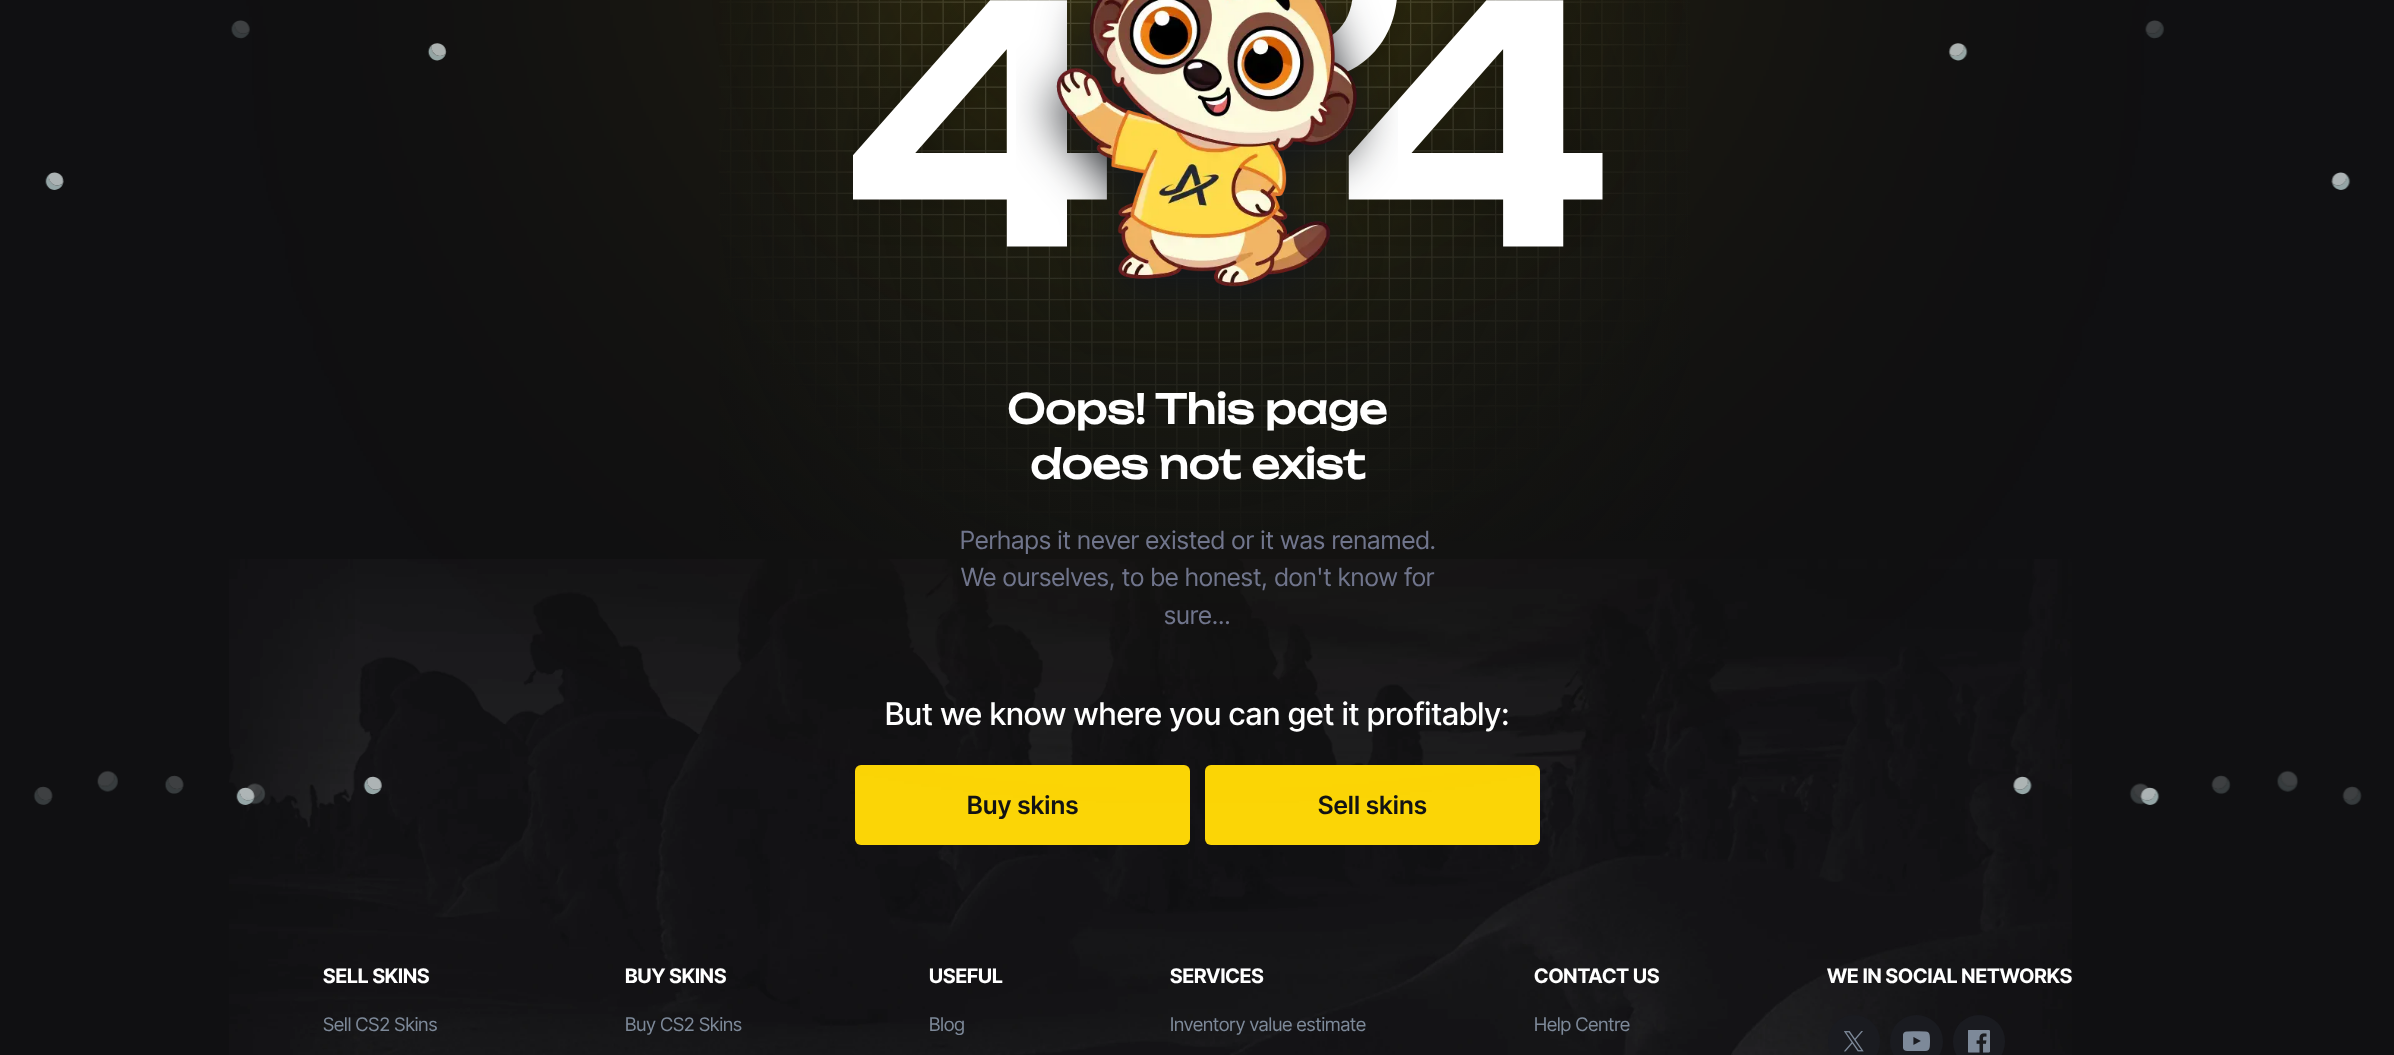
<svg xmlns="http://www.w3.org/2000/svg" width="2394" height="1055">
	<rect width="100%" height="100%" fill="#101012" />
	<image x="229" y="559" width="1843" height="496" href="assets/img1.png" />
	<image x="33" y="20" width="414" height="785" href="assets/img2.png" />
	<image x="1948" y="20" width="414" height="785" href="assets/img3.png" />
	<image x="719" y="0" width="971" height="541" href="assets/img4.png" />
	<rect x="855" y="765" width="335" height="80" rx="6" fill="#FBD506" />
	<rect x="1205" y="765" width="335" height="80" rx="6" fill="#FBD506" />
	<rect x="1035" y="-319" width="325" height="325" rx="162.5" fill="#FBD506" filter="blur(375px)" />
	<rect x="1104" y="-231" width="187" height="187" rx="93.5" fill="#FBD506" filter="blur(187.5px)" />
	<image x="853" y="0" width="750" height="247" href="assets/img5.png" />
	<image x="1016" y="0" width="382" height="322" href="assets/img6.png" />
	<g font-family="Unbounded" font-size="40" font-weight="700" fill="#FFFFFF">
		<text x="1007" y="424">Oops! This page</text>
		<text x="1030" y="479">does not exist</text>
	</g>
	<g font-family="Inter Tight" font-size="25" letter-spacing="0.4" fill="#70758C">
		<text x="960" y="549">Perhaps it never existed or it was renamed.</text>
		<text x="961" y="586">We ourselves, to be honest, don't know for</text>
		<text x="1164" y="624">sure...</text>
	</g>
	<text x="885" y="725" font-family="Inter Tight" font-size="31.25" font-weight="500" letter-spacing="0.45" fill="#FFFFFF">But we know where you can get it profitably:</text>
	<g font-family="Inter Tight" font-size="25" font-weight="600" letter-spacing="0.5" fill="#121314">
		<text x="967" y="814">Buy skins</text>
		<text x="1318" y="814">Sell skins</text>
	</g>
	<text x="323" y="983" font-family="Inter Tight" font-size="20" font-weight="700" fill="#FFFFFF">SELL SKINS</text>
	<text x="323" y="1031" font-family="Inter Tight" font-size="18.75" fill="#7D8999">Sell CS2 Skins</text>
	<text x="625" y="983" font-family="Inter Tight" font-size="20" font-weight="700" fill="#FFFFFF">BUY SKINS</text>
	<text x="625" y="1031" font-family="Inter Tight" font-size="18.75" fill="#7D8999">Buy CS2 Skins</text>
	<text x="929" y="983" font-family="Inter Tight" font-size="20" font-weight="700" fill="#FFFFFF">USEFUL</text>
	<text x="929" y="1031" font-family="Inter Tight" font-size="18.75" fill="#7D8999">Blog</text>
	<text x="1170" y="983" font-family="Inter Tight" font-size="20" font-weight="700" fill="#FFFFFF">SERVICES</text>
	<text x="1170" y="1031" font-family="Inter Tight" font-size="18.75" fill="#7D8999">Inventory value estimate</text>
	<text x="1534" y="983" font-family="Inter Tight" font-size="20" font-weight="700" fill="#FFFFFF">CONTACT US</text>
	<text x="1534" y="1031" font-family="Inter Tight" font-size="18.75" fill="#7D8999">Help Centre</text>
	<text x="1827" y="983" font-family="Inter Tight" font-size="20" font-weight="700" fill="#FFFFFF">WE IN SOCIAL NETWORKS</text>
	<rect x="1828" y="1015" width="52" height="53" rx="26" fill="#1A1B20" />
	<image x="1844" y="1031" width="20" height="21" href="assets/img7.png" />
	<circle cx="1916.5" cy="1041.5" r="26.5" fill="#1A1B20" />
	<image x="1903" y="1031" width="27" height="20" href="assets/img8.png" />
	<rect x="1953" y="1015" width="52" height="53" rx="26" fill="#1A1B20" />
	<image x="1968" y="1030" width="22" height="23" href="assets/img9.png" />
</svg>
